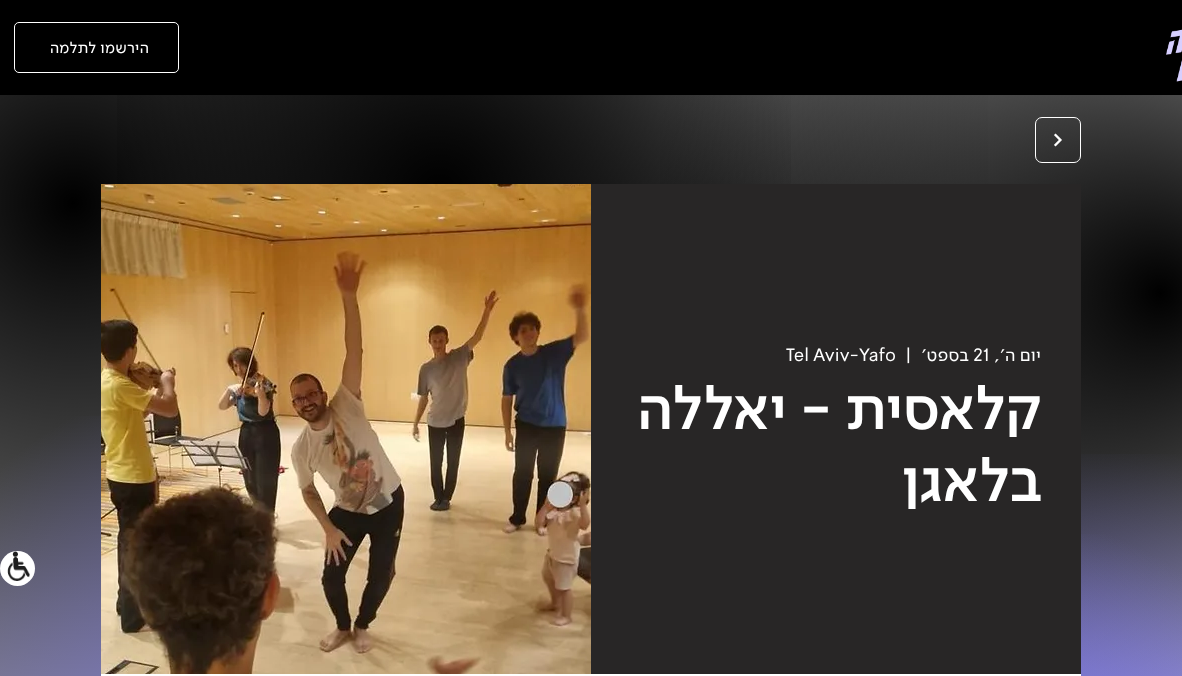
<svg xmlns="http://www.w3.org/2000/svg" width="1182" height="676">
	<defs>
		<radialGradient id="g1" gradientUnits="userSpaceOnUse" cx="729" cy="415" r="903"><stop offset="0" stop-color="#000000" /><stop offset="0.7" stop-color="#E2E2E2" /></radialGradient>
		<radialGradient id="g2" gradientUnits="userSpaceOnUse" cx="73" cy="203" r="1336"><stop offset="0" stop-color="#000000" /><stop offset="0.7" stop-color="#000000" stop-opacity="0" /></radialGradient>
		<radialGradient id="g3" gradientUnits="userSpaceOnUse" cx="365" cy="916" r="1159"><stop offset="0" stop-color="#8079FF" stop-opacity="0.99" /><stop offset="0.5" stop-color="#8079FF" stop-opacity="0" /></radialGradient>
		<radialGradient id="g4" gradientUnits="userSpaceOnUse" cx="1160" cy="293" r="1332"><stop offset="0" stop-color="#000000" /><stop offset="0.4" stop-color="#000000" stop-opacity="0" /></radialGradient>
		<radialGradient id="g5" gradientUnits="userSpaceOnUse" cx="440" cy="191" r="1060"><stop offset="0" stop-color="#000000" /><stop offset="0.35" stop-color="#000000" stop-opacity="0" /></radialGradient>
		<radialGradient id="g6" gradientUnits="userSpaceOnUse" cx="1093" cy="925" r="1373"><stop offset="0" stop-color="#8079FF" /><stop offset="0.35" stop-color="#8079FF" stop-opacity="0" /></radialGradient>
		<radialGradient id="g7" gradientUnits="userSpaceOnUse" cx="945" cy="948" r="1273"><stop offset="0" stop-color="#8079FF" /><stop offset="0.35" stop-color="#8079FF" stop-opacity="0" /></radialGradient>
	</defs>
	<rect width="100%" height="100%" fill="#FFFFFF" />
	<rect x="0" y="0" width="1182" height="95" fill="#000000" />
	<image x="1166" y="29" width="16" height="53" href="assets/img1.png" />
	<rect x="14.5" y="22.5" width="164" height="50" rx="4.5" fill="none" stroke="#FFFFFF" />
	<text x="149" y="53" font-family="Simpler" font-size="16" direction="rtl" fill="#FFFFFF">הירשמו לתלמה</text>
	<rect x="0" y="95" width="1182" height="581" fill="url(#g1)" />
	<rect x="0" y="95" width="988" height="581" fill="url(#g2)" />
	<rect x="0" y="416" width="101" height="260" fill="url(#g3)" />
	<rect x="660" y="95" width="522" height="581" fill="url(#g4)" />
	<rect x="117" y="95" width="674" height="221" fill="url(#g5)" />
	<rect x="1081" y="454" width="101" height="222" fill="url(#g6)" />
	<rect x="1081" y="534" width="101" height="142" fill="url(#g7)" />
	<rect x="1035.5" y="117.5" width="45" height="45" rx="6.5" fill="none" stroke="#FFFFFF" />
	<image x="1054" y="133" width="8" height="14" href="assets/img2.png" />
	<rect x="591" y="184" width="490" height="490" fill="#282626" />
	<text x="1041" y="361" font-family="Simpler" font-size="18" direction="rtl" fill="#FFFFFF">יום ה׳,</text>
	<text x="973" y="361" font-family="Simpler" font-size="18" fill="#FFFFFF">21</text>
	<text x="969" y="361" font-family="Simpler" font-size="18" direction="rtl" fill="#FFFFFF">בספט׳</text>
	<g font-family="Simpler" font-size="18" fill="#FFFFFF">
		<text x="904" y="361">|</text>
		<text x="786" y="361">Tel Aviv-Yafo</text>
	</g>
	<g font-family="Simpler" font-size="60" font-weight="700" direction="rtl" fill="#FFFFFF">
		<text x="1041" y="429">קלאסית - יאללה</text>
		<text x="1041" y="501">בלאגן</text>
	</g>
	<image x="101" y="184" width="490" height="490" href="assets/img3.png" />
	<rect x="101" y="674" width="980" height="2" fill="#FFFFFF" />
	<circle cx="17.5" cy="568.5" r="17.5" fill="#FFFFFF" />
	<image x="7" y="551" width="23" height="30" href="assets/img4.png" />
</svg>
